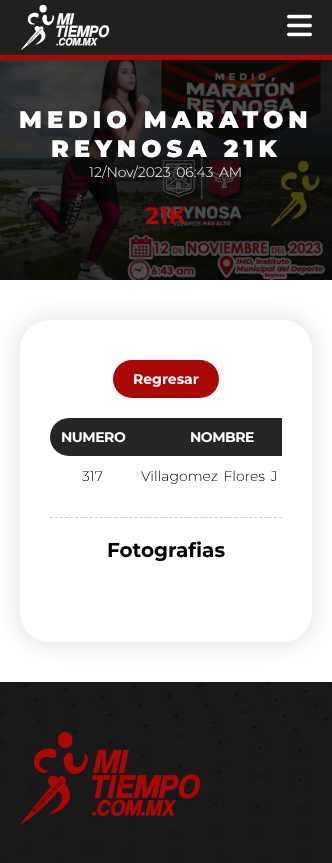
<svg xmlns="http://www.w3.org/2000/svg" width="332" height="863">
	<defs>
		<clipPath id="clip1"><path d="M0 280H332V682H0ZM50 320H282C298.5 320 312 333.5 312 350V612C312 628.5 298.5 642 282 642H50C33.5 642 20 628.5 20 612V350C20 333.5 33.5 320 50 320Z" clip-rule="evenodd" /></clipPath>
	</defs>
	<rect width="100%" height="100%" fill="#FFFFFF" />
	<rect x="0" y="0" width="332" height="55" fill="#202020" />
	<rect x="0" y="55" width="332" height="5" fill="#AA0707" />
	<image x="21" y="4" width="89" height="46" href="assets/img1.png" />
	<image x="287" y="14" width="25" height="23" href="assets/img2.png" />
	<image x="0" y="60" width="332" height="220" href="assets/img3.png" />
	<g font-family="Montserrat" font-size="24" font-weight="900" letter-spacing="5" fill="#FFFFFF">
		<text x="19" y="128">MEDIO MARATON</text>
		<text x="51" y="157">REYNOSA 21K</text>
	</g>
	<text x="89" y="177" word-spacing="2" font-family="Montserrat" font-size="14" font-weight="300" fill="#FFFFFF">12/Nov/2023 06:43 AM</text>
	<text x="145" y="224" font-family="Montserrat" font-size="24" font-weight="700" fill="#AA0707">21K</text>
	<g clip-path="url(#clip1)">
		<rect x="16" y="316" width="300" height="330" rx="34" fill="#000000" fill-opacity="0.1" filter="blur(11.5px)" />
	</g>
	<rect x="113" y="360" width="106" height="38" rx="19" fill="#AA0707" />
	<text x="133" y="384" font-family="Montserrat" font-size="14" font-weight="700" fill="#FFFFFF">Regresar</text>
	<path d="M69 418H136V456H69C58.5 456 50 447.5 50 437C50 426.5 58.5 418 69 418Z" fill="#252525" />
	<text x="61" y="442" font-family="Montserrat" font-size="14" font-weight="700" letter-spacing="-0.5" fill="#FFFFFF">NUMERO</text>
	<rect x="136" y="418" width="146" height="38" fill="#252525" />
	<text x="190" y="442" font-family="Montserrat" font-size="14" font-weight="700" letter-spacing="-0.5" fill="#FFFFFF">NOMBRE</text>
	<g font-family="Montserrat" font-size="14" font-weight="300" fill="#000000">
		<text x="82" y="481">317</text>
		<text x="141" y="481" word-spacing="2">Villagomez Flores J</text>
	</g>
	<path d="M50 517.5H282" fill="none" stroke="#CCCCCC" stroke-dasharray="3 1.98" />
	<text x="107" y="557" font-family="Montserrat" font-size="20" font-weight="700" fill="#000000">Fotografias</text>
	<image x="0" y="682" width="332" height="181" href="assets/img4.png" />
	<image x="20" y="732" width="180" height="93" href="assets/img5.png" />
</svg>
